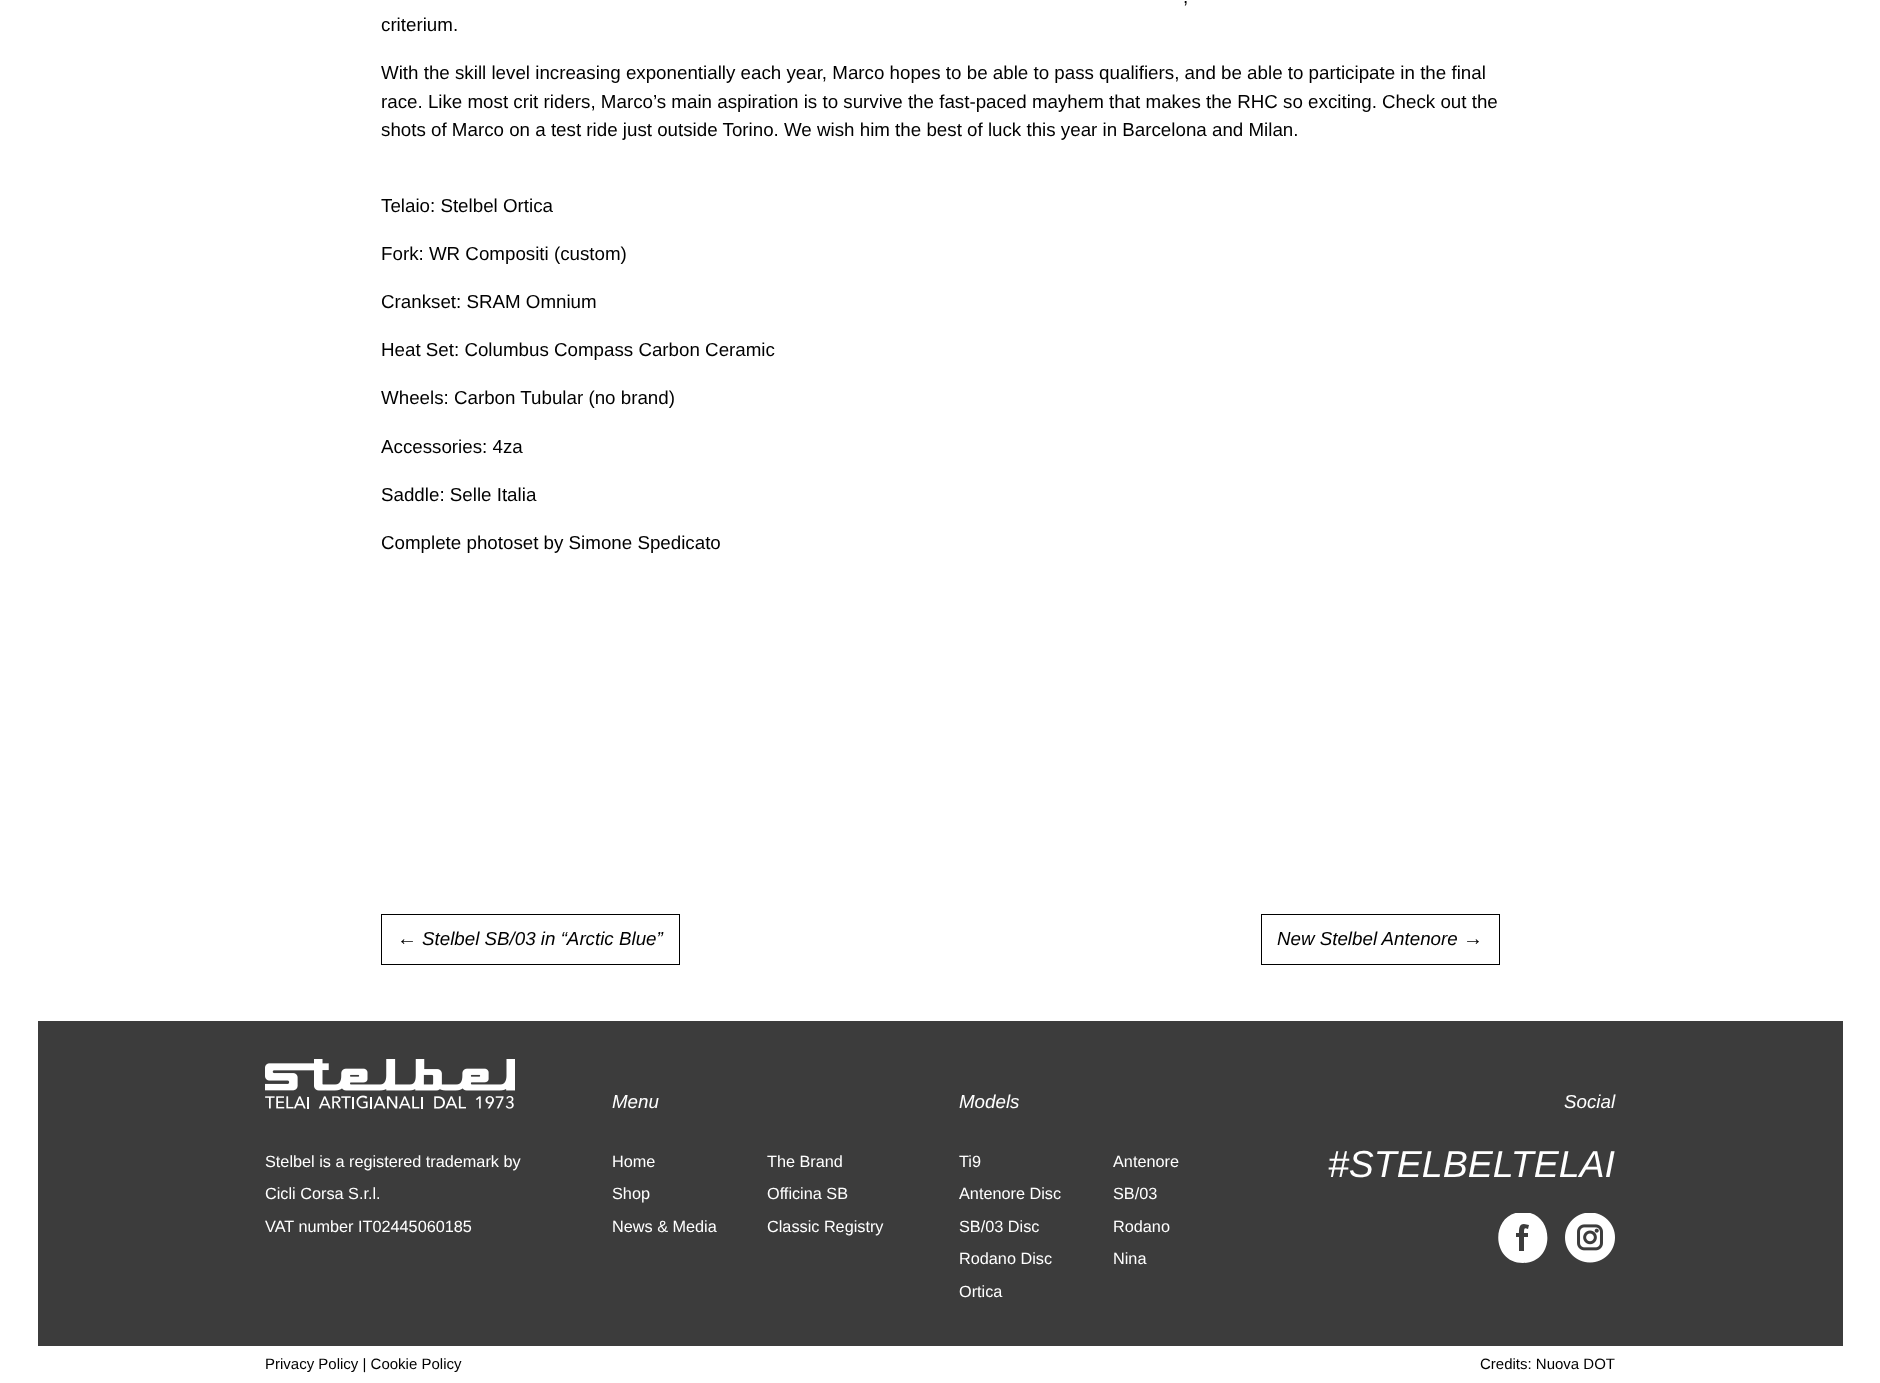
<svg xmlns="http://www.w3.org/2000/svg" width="1880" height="1383">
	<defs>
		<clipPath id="clip1"><rect x="1498" y="1213" width="50" height="50" /></clipPath>
	</defs>
	<rect width="100%" height="100%" fill="#FFFFFF" />
	<g font-family="Liberation Sans" font-size="18.75" fill="#000000">
		<text x="1183" y="3">,</text>
		<text x="381" y="31">criterium.</text>
		<text x="381" y="79">With the skill level increasing exponentially each year, Marco hopes to be able to pass qualifiers, and be able to participate in the final</text>
		<text x="381" y="108">race. Like most crit riders, Marco’s main aspiration is to survive the fast-paced mayhem that makes the RHC so exciting. Check out the</text>
		<text x="381" y="136">shots of Marco on a test ride just outside Torino. We wish him the best of luck this year in Barcelona and Milan.</text>
		<text x="381" y="212">Telaio: Stelbel Ortica</text>
		<text x="381" y="260">Fork: WR Compositi (custom)</text>
		<text x="381" y="308">Crankset: SRAM Omnium</text>
		<text x="381" y="356">Heat Set: Columbus Compass Carbon Ceramic</text>
		<text x="381" y="404">Wheels: Carbon Tubular (no brand)</text>
		<text x="381" y="453">Accessories: 4za</text>
		<text x="381" y="501">Saddle: Selle Italia</text>
		<text x="381" y="549">Complete photoset by Simone Spedicato</text>
	</g>
	<rect x="381.5" y="914.5" width="298" height="50" fill="none" stroke="#000000" />
	<text x="397" y="945" font-family="Liberation Sans" font-size="20" font-style="italic" fill="#000000">←</text>
	<text x="422" y="945" font-family="Liberation Sans" font-size="18.75" font-style="italic" fill="#000000">Stelbel SB/03 in “Arctic Blue”</text>
	<rect x="1261.5" y="914.5" width="238" height="50" fill="none" stroke="#000000" />
	<text x="1277" y="945" font-family="Liberation Sans" font-size="18.75" font-style="italic" fill="#000000">New Stelbel Antenore</text>
	<text x="1463" y="945" font-family="Liberation Sans" font-size="20" font-style="italic" fill="#000000">→</text>
	<rect x="38" y="1021" width="1805" height="325" fill="#3C3C3C" />
	<image x="265" y="1059" width="250" height="50" href="assets/img1.png" />
	<g font-family="Liberation Sans" font-size="16.25" fill="#FFFFFF">
		<text x="265" y="1167">Stelbel is a registered trademark by</text>
		<text x="265" y="1199">Cicli Corsa S.r.l.</text>
		<text x="265" y="1232">VAT number IT02445060185</text>
	</g>
	<text x="612" y="1108" font-family="Liberation Sans" font-size="18.75" font-style="italic" fill="#FFFFFF">Menu</text>
	<g font-family="Liberation Sans" font-size="16.25" fill="#FFFFFF">
		<text x="612" y="1167">Home</text>
		<text x="767" y="1167">The Brand</text>
		<text x="612" y="1199">Shop</text>
		<text x="767" y="1199">Officina SB</text>
		<text x="612" y="1232">News &amp; Media</text>
		<text x="767" y="1232">Classic Registry</text>
	</g>
	<text x="959" y="1108" font-family="Liberation Sans" font-size="18.75" font-style="italic" fill="#FFFFFF">Models</text>
	<g font-family="Liberation Sans" font-size="16.25" fill="#FFFFFF">
		<text x="959" y="1167">Ti9</text>
		<text x="1113" y="1167">Antenore</text>
		<text x="959" y="1199">Antenore Disc</text>
		<text x="1113" y="1199">SB/03</text>
		<text x="959" y="1232">SB/03 Disc</text>
		<text x="1113" y="1232">Rodano</text>
		<text x="959" y="1264">Rodano Disc</text>
		<text x="1113" y="1264">Nina</text>
		<text x="959" y="1297">Ortica</text>
	</g>
	<text x="1564" y="1108" font-family="Liberation Sans" font-size="18.75" font-style="italic" fill="#FFFFFF">Social</text>
	<text x="1328" y="1177" font-family="Liberation Sans" font-size="37.5" font-style="italic" fill="#FFFFFF">#STELBELTELAI</text>
	<g clip-path="url(#clip1)">
		<path d="M1523 1212C1490 1212 1490 1263 1523 1263C1556 1263 1555 1212 1523 1212ZM1528 1233V1237H1524V1251H1519V1237H1516V1233H1519C1519 1229 1519 1224 1524 1224L1529 1225L1528 1229C1524 1227 1524 1229 1524 1233Z" fill="#FFFFFF" />
	</g>
	<image x="1565" y="1213" width="50" height="50" href="assets/img2.png" />
	<g font-family="Liberation Sans" font-size="15" fill="#000000">
		<text x="265" y="1369">Privacy Policy | Cookie Policy</text>
		<text x="1480" y="1369">Credits: Nuova DOT</text>
	</g>
</svg>
